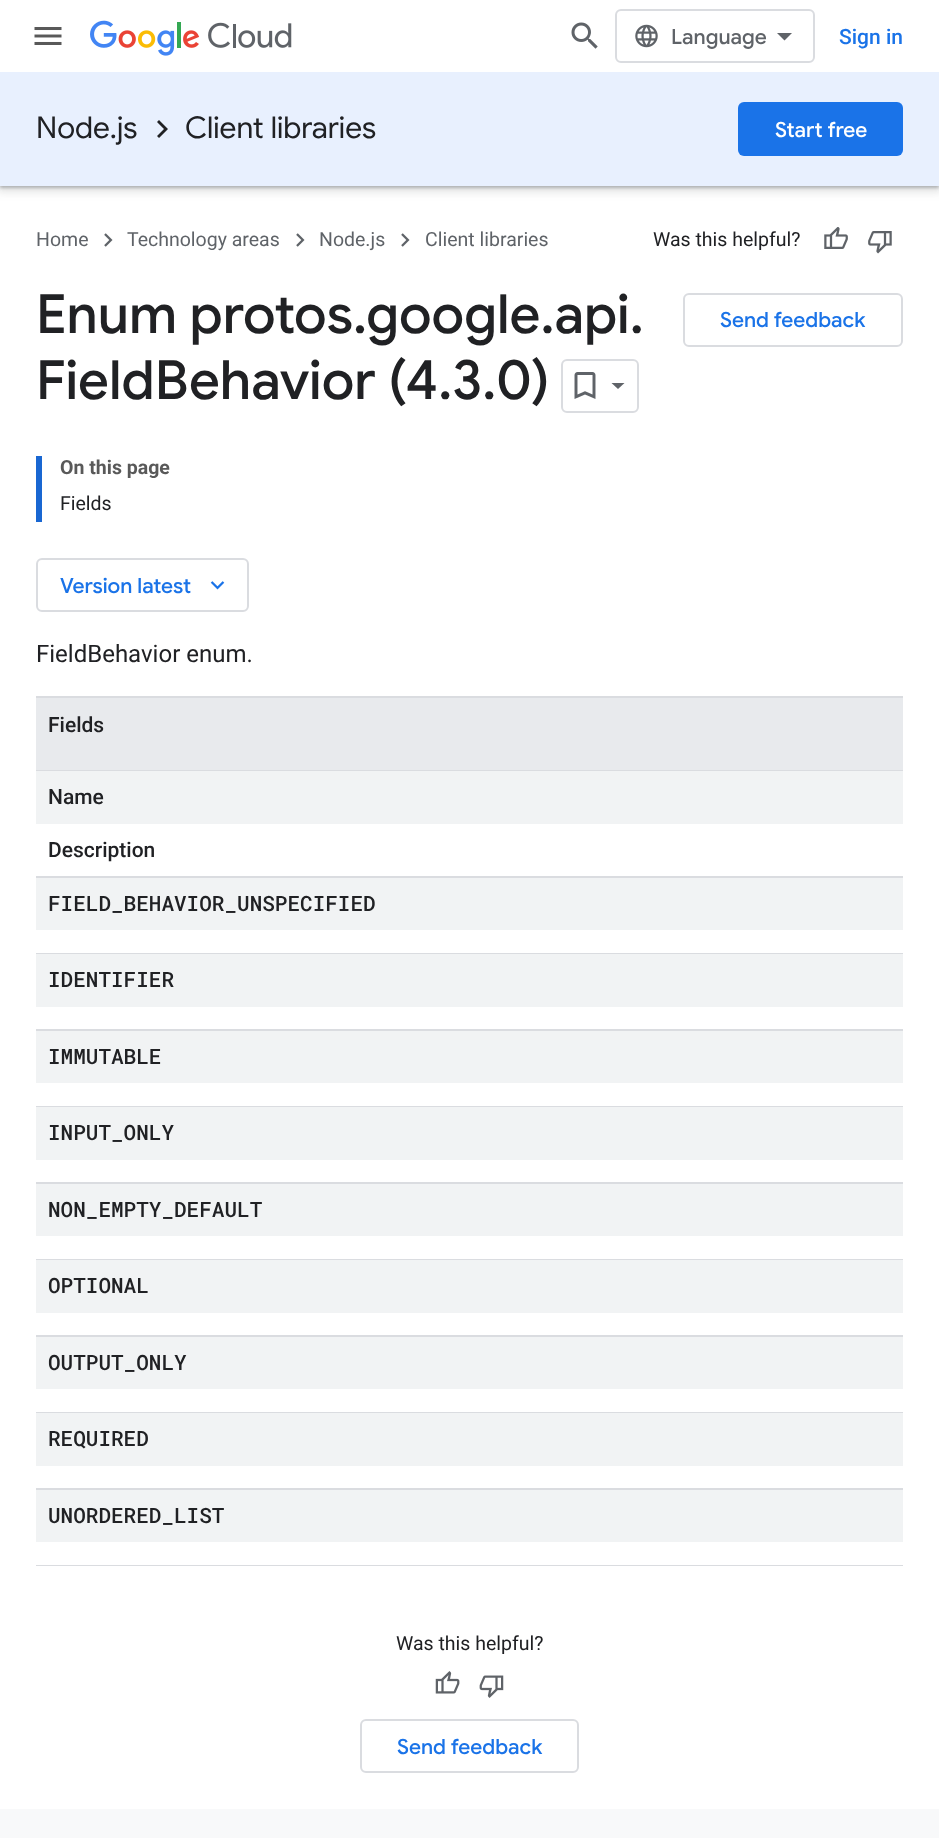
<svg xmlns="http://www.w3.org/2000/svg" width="939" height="1838">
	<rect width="100%" height="100%" fill="#F8F9FA" />
	<rect x="0" y="186" width="939" height="1623" fill="#FFFFFF" />
	<rect x="-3" y="72" width="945" height="120" fill="#3C4043" fill-opacity="0.15" filter="blur(4.5px)" />
	<rect x="0" y="74" width="939" height="114" fill="#3C4043" fill-opacity="0.3" filter="blur(1.5px)" />
	<rect x="0" y="0" width="939" height="72" fill="#FFFFFF" />
	<image x="34" y="27" width="28" height="18" href="assets/img1.png" />
	<image x="90" y="20" width="202" height="36" href="assets/img2.png" />
	<image x="571" y="22" width="27" height="27" href="assets/img3.png" />
	<rect x="616" y="10" width="198" height="52" rx="5" fill="none" stroke="#DADCE0" stroke-width="2" />
	<image x="635" y="24" width="23" height="24" href="assets/img4.png" />
	<text x="671" y="44" font-family="Google Sans" font-size="21" font-weight="500" fill="#5F6368">Language</text>
	<path d="M784.5 40.5L777 33H792Z" fill="#5F6368" />
	<text x="839" y="44" font-family="Roboto" font-size="21" font-weight="500" fill="#1A73E8">Sign in</text>
	<rect x="0" y="72" width="939" height="114" fill="#E8F0FE" />
	<text x="36" y="138" font-family="Google Sans" font-size="30" fill="#202124">Node.js</text>
	<path d="M159 120L168 129L159 138L157 136L164 129L157 122Z" fill="#202124" />
	<text x="185" y="138" font-family="Google Sans" font-size="30" fill="#202124">Client libraries</text>
	<rect x="738" y="102" width="165" height="54" rx="6" fill="#1A73E8" />
	<text x="775" y="137" font-family="Google Sans" font-size="21" font-weight="500" fill="#FFFFFF">Start free</text>
	<text x="36" y="246" font-family="Roboto" font-size="19.5" fill="#5F6368">Home</text>
	<image x="104" y="233" width="9" height="14" href="assets/img5.png" />
	<text x="127" y="246" font-family="Roboto" font-size="19.5" fill="#5F6368">Technology areas</text>
	<image x="296" y="233" width="9" height="14" href="assets/img5.png" />
	<text x="319" y="246" font-family="Roboto" font-size="19.5" fill="#5F6368">Node.js</text>
	<image x="401" y="233" width="9" height="14" href="assets/img5.png" />
	<text x="425" y="246" font-family="Roboto" font-size="19.5" fill="#5F6368">Client libraries</text>
	<text x="653" y="246" font-family="Roboto" font-size="19.5" fill="#202124">Was this helpful?</text>
	<image x="824" y="227" width="24" height="22" href="assets/img6.png" />
	<image x="868" y="231" width="24" height="23" href="assets/img7.png" />
	<g font-family="Google Sans" font-size="54" font-weight="500" fill="#202124">
		<text x="36" y="333">Enum protos.google.api.</text>
		<text x="36" y="399">FieldBehavior (4.3.0)</text>
	</g>
	<rect x="562" y="360" width="76" height="52" rx="5" fill="none" stroke="#DADCE0" stroke-width="2" />
	<image x="574" y="372" width="22" height="27" href="assets/img8.png" />
	<path d="M611.5 383H624.5L618 389Z" fill="#5F6368" />
	<rect x="684" y="294" width="218" height="52" rx="5" fill="none" stroke="#DADCE0" stroke-width="2" />
	<text x="720" y="327" font-family="Google Sans" font-size="21" font-weight="500" fill="#1A73E8">Send feedback</text>
	<rect x="36" y="456" width="6" height="66" fill="#1967D2" />
	<text x="60" y="474" font-family="Roboto" font-size="19.5" font-weight="700" fill="#595959">On this page</text>
	<text x="60" y="510" font-family="Roboto" font-size="19.5" fill="#202124">Fields</text>
	<rect x="37" y="559" width="211" height="52" rx="5" fill="none" stroke="#DADCE0" stroke-width="2" />
	<text x="60" y="593" font-family="Google Sans" font-size="21" font-weight="500" fill="#1A73E8">Version latest</text>
	<image x="210" y="581" width="15" height="9" href="assets/img9.png" />
	<text x="36" y="662" font-family="Roboto" font-size="24" fill="#202124">FieldBehavior enum.</text>
	<rect x="36" y="696" width="867" height="2" fill="#DADCE0" />
	<rect x="36" y="770" width="867" height="1" fill="#DADCE0" />
	<rect x="36" y="698" width="867" height="72" fill="#E8EAED" />
	<text x="48" y="732" font-family="Roboto" font-size="21" font-weight="500" fill="#202124">Fields</text>
	<rect x="36" y="876" width="867" height="2" fill="#DADCE0" />
	<rect x="36" y="771" width="867" height="53" fill="#F1F3F4" />
	<g font-family="Roboto" font-size="21" font-weight="500" fill="#202124">
		<text x="48" y="804">Name</text>
		<text x="48" y="857">Description</text>
	</g>
	<rect x="36" y="953" width="867" height="1" fill="#DADCE0" />
	<rect x="36" y="878" width="867" height="52" fill="#F1F3F4" />
	<text x="48" y="911" font-family="Roboto Mono" font-size="21" font-weight="500" fill="#202124">FIELD_BEHAVIOR_UNSPECIFIED</text>
	<rect x="36" y="1029" width="867" height="2" fill="#DADCE0" />
	<rect x="36" y="954" width="867" height="53" fill="#F1F3F4" />
	<text x="48" y="987" font-family="Roboto Mono" font-size="21" font-weight="500" fill="#202124">IDENTIFIER</text>
	<rect x="36" y="1106" width="867" height="1" fill="#DADCE0" />
	<rect x="36" y="1031" width="867" height="52" fill="#F1F3F4" />
	<text x="48" y="1064" font-family="Roboto Mono" font-size="21" font-weight="500" fill="#202124">IMMUTABLE</text>
	<rect x="36" y="1182" width="867" height="2" fill="#DADCE0" />
	<rect x="36" y="1107" width="867" height="53" fill="#F1F3F4" />
	<text x="48" y="1140" font-family="Roboto Mono" font-size="21" font-weight="500" fill="#202124">INPUT_ONLY</text>
	<rect x="36" y="1259" width="867" height="1" fill="#DADCE0" />
	<rect x="36" y="1184" width="867" height="52" fill="#F1F3F4" />
	<text x="48" y="1217" font-family="Roboto Mono" font-size="21" font-weight="500" fill="#202124">NON_EMPTY_DEFAULT</text>
	<rect x="36" y="1335" width="867" height="2" fill="#DADCE0" />
	<rect x="36" y="1260" width="867" height="53" fill="#F1F3F4" />
	<text x="48" y="1293" font-family="Roboto Mono" font-size="21" font-weight="500" fill="#202124">OPTIONAL</text>
	<rect x="36" y="1412" width="867" height="1" fill="#DADCE0" />
	<rect x="36" y="1337" width="867" height="52" fill="#F1F3F4" />
	<text x="48" y="1370" font-family="Roboto Mono" font-size="21" font-weight="500" fill="#202124">OUTPUT_ONLY</text>
	<rect x="36" y="1488" width="867" height="2" fill="#DADCE0" />
	<rect x="36" y="1413" width="867" height="53" fill="#F1F3F4" />
	<text x="48" y="1446" font-family="Roboto Mono" font-size="21" font-weight="500" fill="#202124">REQUIRED</text>
	<rect x="36" y="1565" width="867" height="1" fill="#DADCE0" />
	<rect x="36" y="1490" width="867" height="52" fill="#F1F3F4" />
	<text x="48" y="1523" font-family="Roboto Mono" font-size="21" font-weight="500" fill="#202124">UNORDERED_LIST</text>
	<text x="396" y="1650" font-family="Roboto" font-size="19.5" fill="#202124">Was this helpful?</text>
	<image x="435" y="1671" width="25" height="23" href="assets/img10.png" />
	<image x="479" y="1675" width="25" height="23" href="assets/img11.png" />
	<rect x="361" y="1720" width="217" height="52" rx="5" fill="none" stroke="#DADCE0" stroke-width="2" />
	<text x="397" y="1754" font-family="Google Sans" font-size="21" font-weight="500" fill="#1A73E8">Send feedback</text>
</svg>
